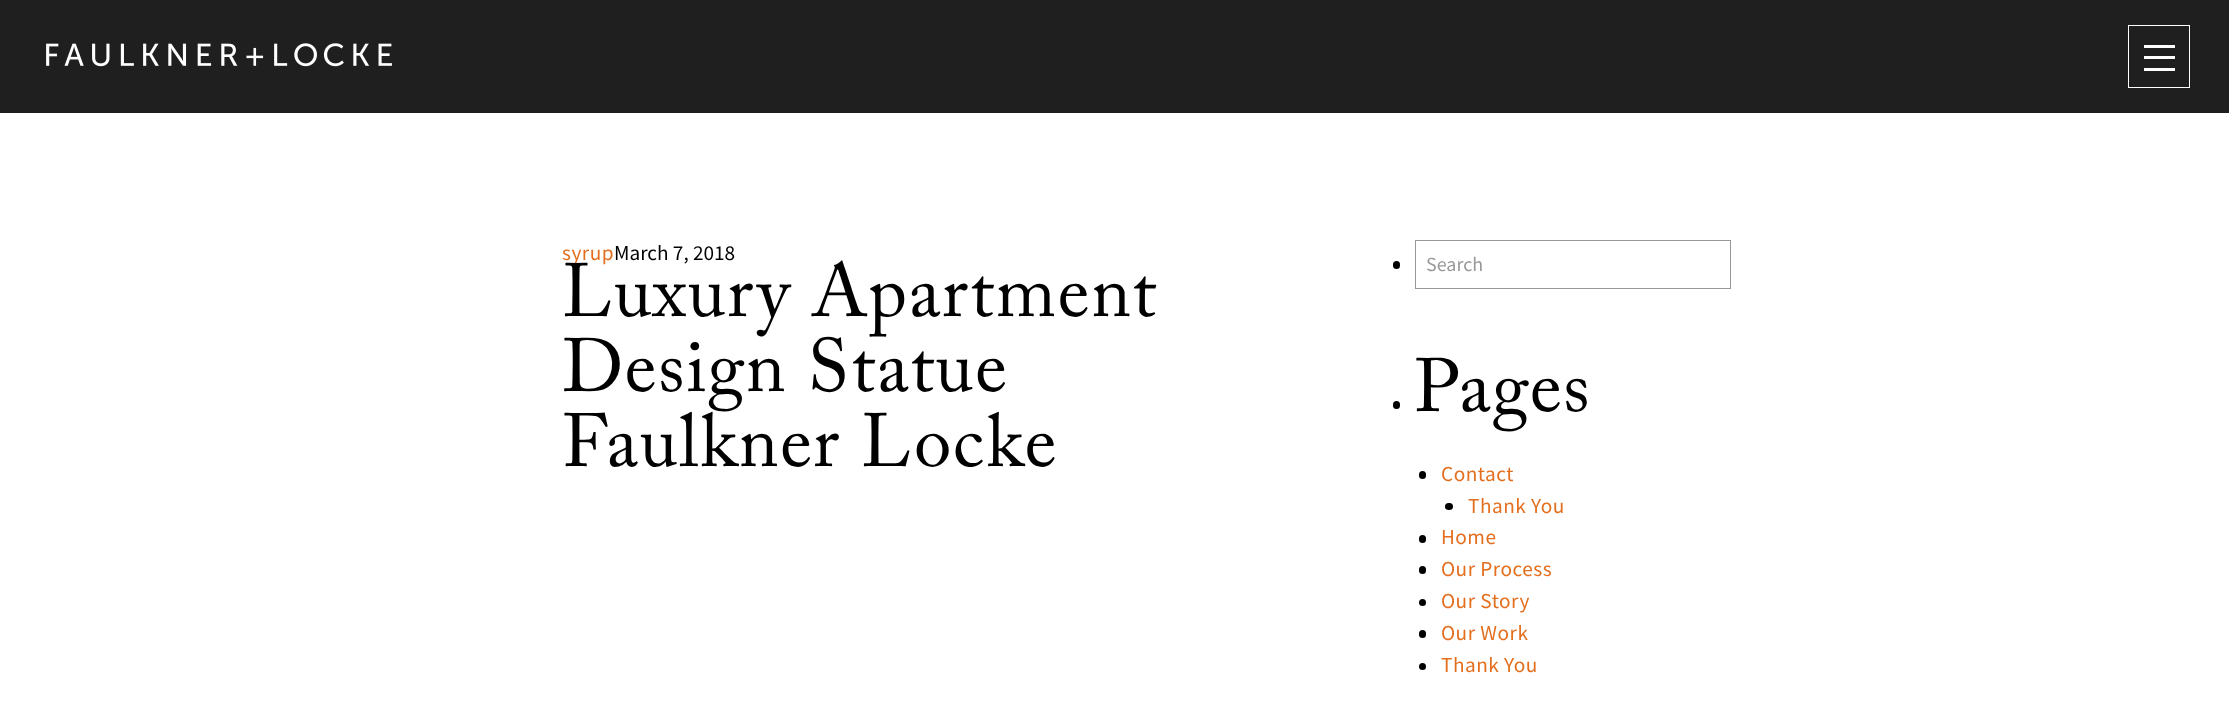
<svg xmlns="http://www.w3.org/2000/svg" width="2229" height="702">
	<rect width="100%" height="100%" fill="#FFFFFF" />
	<rect x="0" y="0" width="2229" height="113" fill="#1F1F1F" />
	<image x="46" y="43" width="346" height="24" href="assets/img1.png" />
	<rect x="2128.5" y="25.5" width="61" height="62" fill="none" stroke="#FFFFFF" />
	<rect x="2144" y="45" width="31" height="3" fill="#FFFFFF" />
	<rect x="2144" y="56" width="31" height="3" fill="#FFFFFF" />
	<rect x="2144" y="68" width="31" height="3" fill="#FFFFFF" />
	<text x="562" y="260" font-family="Source Sans Pro" font-size="21.25" letter-spacing="0.5" fill="#E36F1E">syrup</text>
	<text x="614" y="260" font-family="Source Sans Pro" font-size="21.25" fill="#000000">March 7, 2018</text>
	<g font-family="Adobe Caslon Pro" font-size="75" letter-spacing="1.5" fill="#000000">
		<text x="562" y="316">Luxury Apartment</text>
		<text x="562" y="391">Design Statue</text>
		<text x="562" y="466">Faulkner Locke</text>
	</g>
	<rect x="1393" y="261" width="7" height="8" rx="3.5" fill="#000000" />
	<rect x="1415.5" y="240.5" width="315" height="48" fill="none" stroke="#979797" />
	<text x="1426" y="271" font-family="Source Sans Pro" font-size="20" fill="#999999">Search</text>
	<rect x="1393" y="401" width="7" height="8" rx="3.5" fill="#000000" />
	<text x="1414" y="411" font-family="Adobe Caslon Pro" font-size="75" letter-spacing="1.5" fill="#000000">Pages</text>
	<rect x="1419" y="471" width="7" height="8" rx="3.5" fill="#000000" />
	<text x="1441" y="481" font-family="Source Sans Pro" font-size="21.25" letter-spacing="0.5" fill="#E36F1E">Contact</text>
	<rect x="1445" y="503" width="8" height="7" rx="3.5" fill="#000000" />
	<text x="1468" y="513" font-family="Source Sans Pro" font-size="21.25" letter-spacing="0.5" fill="#E36F1E">Thank You</text>
	<rect x="1419" y="535" width="7" height="8" rx="3.5" fill="#000000" />
	<text x="1441" y="544" font-family="Source Sans Pro" font-size="21.25" letter-spacing="0.5" fill="#E36F1E">Home</text>
	<rect x="1419" y="566" width="7" height="8" rx="3.5" fill="#000000" />
	<text x="1441" y="576" font-family="Source Sans Pro" font-size="21.25" letter-spacing="0.5" fill="#E36F1E">Our Process</text>
	<circle cx="1422.5" cy="602.5" r="3.5" fill="#000000" />
	<text x="1441" y="608" font-family="Source Sans Pro" font-size="21.25" letter-spacing="0.5" fill="#E36F1E">Our Story</text>
	<rect x="1419" y="630" width="7" height="8" rx="3.5" fill="#000000" />
	<text x="1441" y="640" font-family="Source Sans Pro" font-size="21.25" letter-spacing="0.5" fill="#E36F1E">Our Work</text>
	<circle cx="1422.5" cy="666.5" r="3.5" fill="#000000" />
	<text x="1441" y="672" font-family="Source Sans Pro" font-size="21.25" letter-spacing="0.5" fill="#E36F1E">Thank You</text>
</svg>
